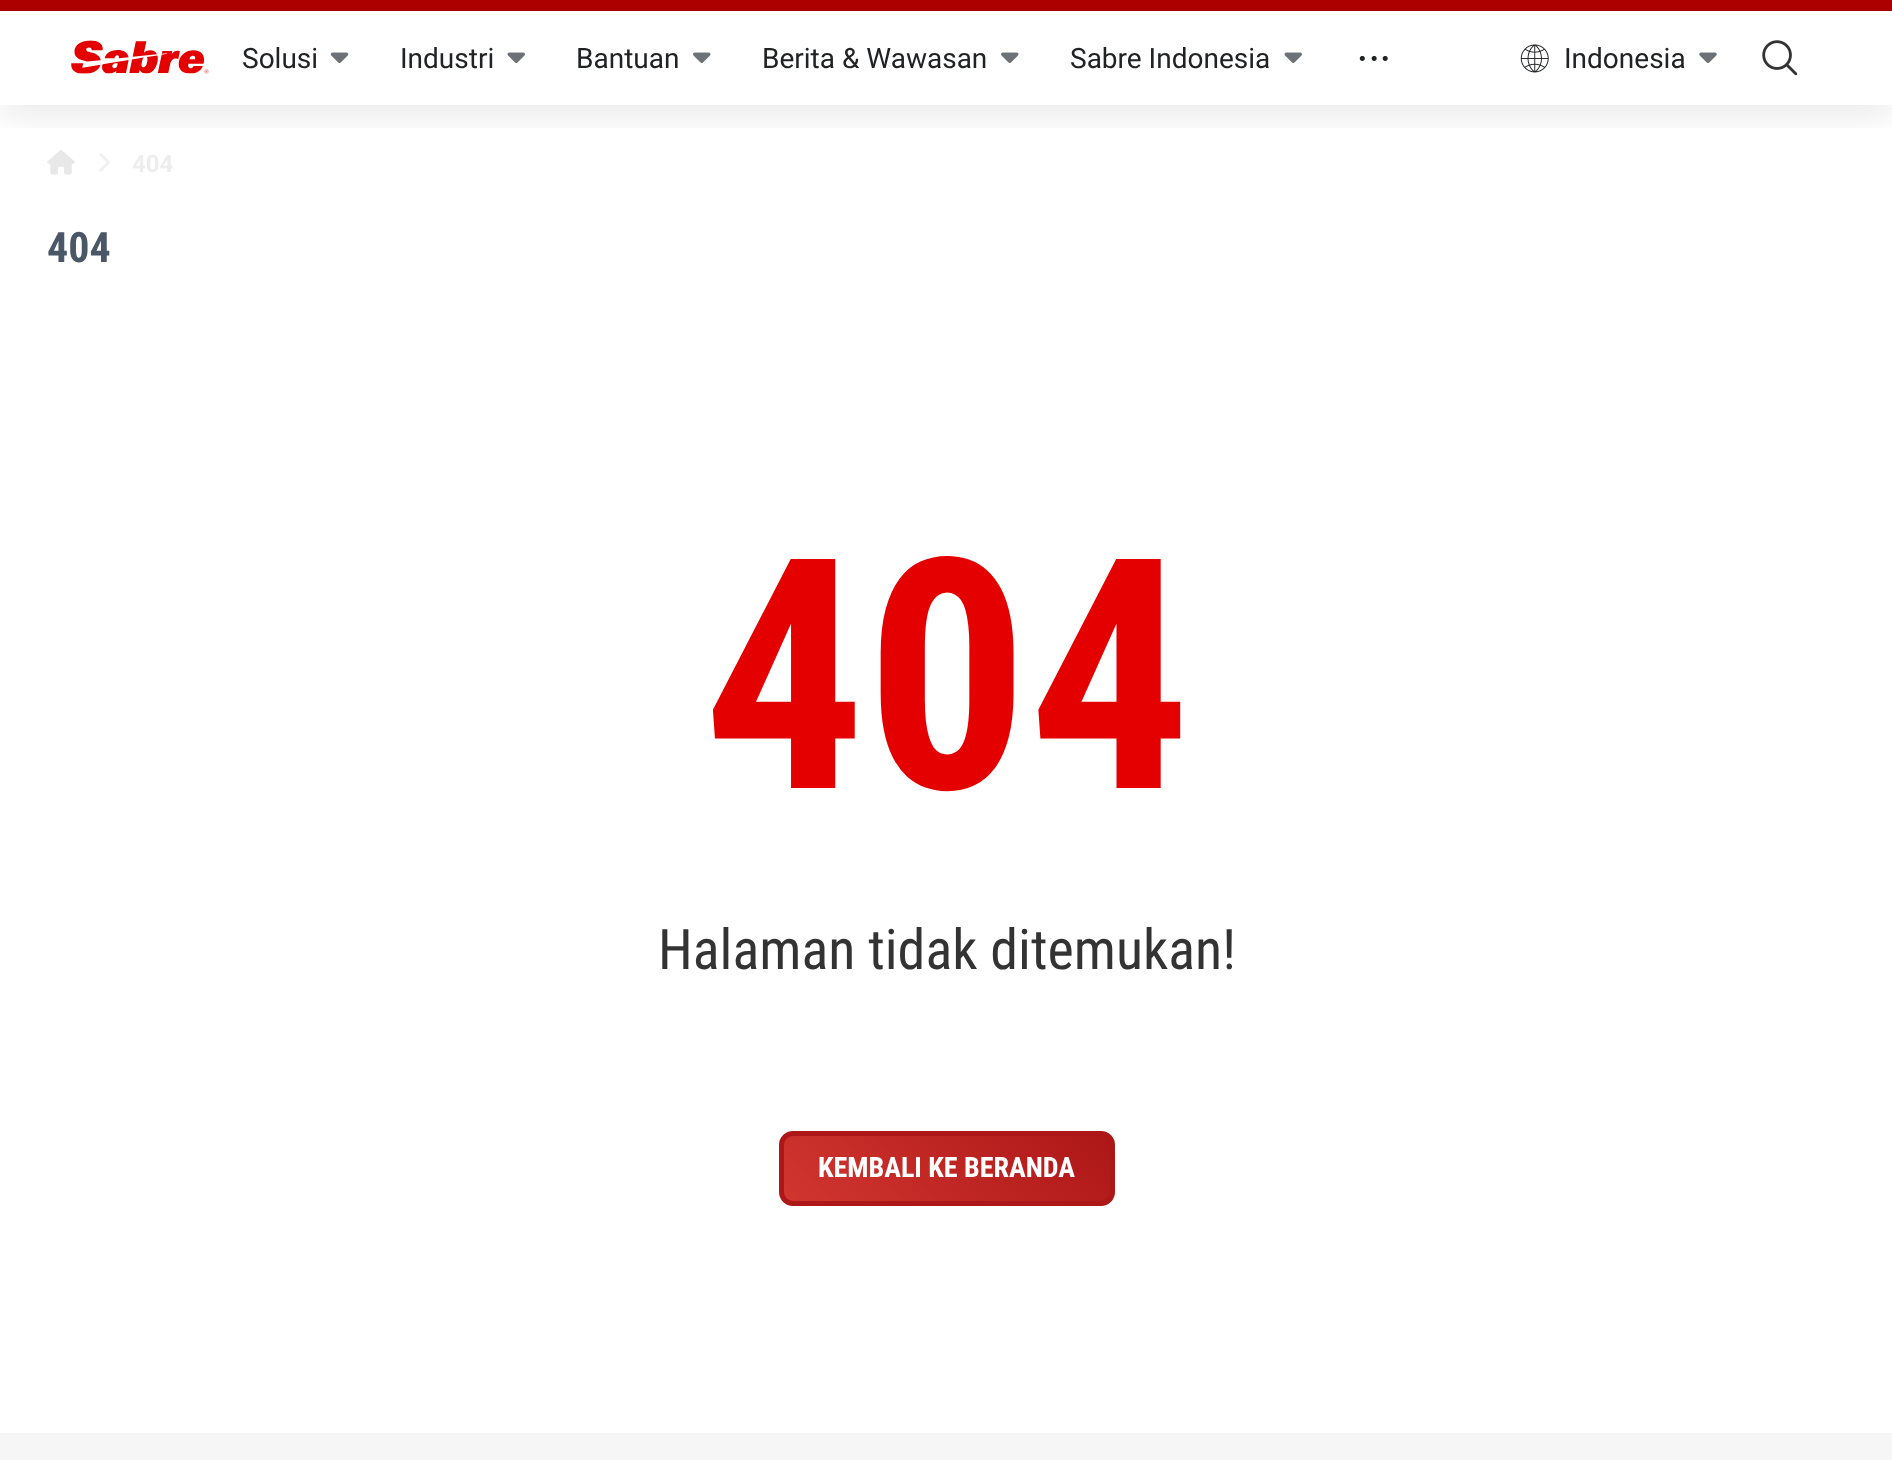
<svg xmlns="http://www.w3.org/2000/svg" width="1892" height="1460">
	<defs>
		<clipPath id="clip1"><rect x="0" y="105" width="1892" height="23" /></clipPath>
		<linearGradient id="g1" gradientUnits="userSpaceOnUse" x1="1044" y1="1071" x2="849" y2="1266"><stop offset="0" stop-color="#AD1717" /><stop offset="1" stop-color="#D13630" /></linearGradient>
	</defs>
	<rect width="100%" height="100%" fill="#FFFFFF" />
	<image x="47" y="150" width="28" height="25" href="assets/img9.png" />
	<image x="99" y="153" width="11" height="19" href="assets/img10.png" />
	<g clip-path="url(#clip1)">
		<rect x="0" y="7" width="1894" height="105" fill="#0C0C0C" fill-opacity="0.1" filter="blur(19px)" />
	</g>
	<rect x="0" y="0" width="1892" height="11" fill="#AC0000" />
	<image x="71" y="40" width="138" height="34" href="assets/img1.png" />
	<text x="242" y="68" font-family="Roboto" font-size="28" fill="#202224">Solusi</text>
	<image x="330" y="52" width="19" height="11" href="assets/img2.png" />
	<text x="400" y="68" font-family="Roboto" font-size="28" fill="#202224">Industri</text>
	<image x="507" y="52" width="18" height="11" href="assets/img3.png" />
	<text x="576" y="68" font-family="Roboto" font-size="28" fill="#202224">Bantuan</text>
	<image x="693" y="52" width="18" height="11" href="assets/img4.png" />
	<text x="762" y="68" font-family="Roboto" font-size="28" fill="#202224">Berita &amp; Wawasan</text>
	<image x="1001" y="52" width="18" height="11" href="assets/img4.png" />
	<text x="1070" y="68" font-family="Roboto" font-size="28" fill="#202224">Sabre Indonesia</text>
	<image x="1284" y="52" width="18" height="11" href="assets/img3.png" />
	<image x="1359" y="55" width="29" height="6" href="assets/img5.png" />
	<image x="1520" y="44" width="29" height="29" href="assets/img6.png" />
	<text x="1564" y="68" font-family="Roboto" font-size="28" fill="#202224">Indonesia</text>
	<image x="1699" y="52" width="18" height="11" href="assets/img7.png" />
	<image x="1762" y="40" width="36" height="36" href="assets/img8.png" />
	<text x="132" y="172" font-family="Roboto" font-size="24" font-weight="700" fill="#EDEDED">404</text>
	<text x="47" y="262" font-family="Roboto Condensed" font-size="42" font-weight="700" fill="#4A5767">404</text>
	<text x="703" y="788" font-family="Roboto Condensed" font-size="322" font-weight="700" fill="#E50000">404</text>
	<text x="658" y="969" font-family="Roboto Condensed" font-size="56" fill="#333333">Halaman tidak ditemukan!</text>
	<rect x="784" y="1136" width="326" height="65" fill="url(#g1)" />
	<rect x="781.5" y="1133.5" width="331" height="70" rx="11.5" fill="none" stroke="#AD1717" stroke-width="5" />
	<text x="818" y="1177" font-family="Roboto Condensed" font-size="28" font-weight="700" fill="#FFFFFF">KEMBALI KE BERANDA</text>
	<rect x="0" y="1433" width="1892" height="27" fill="#F6F6F7" />
</svg>
